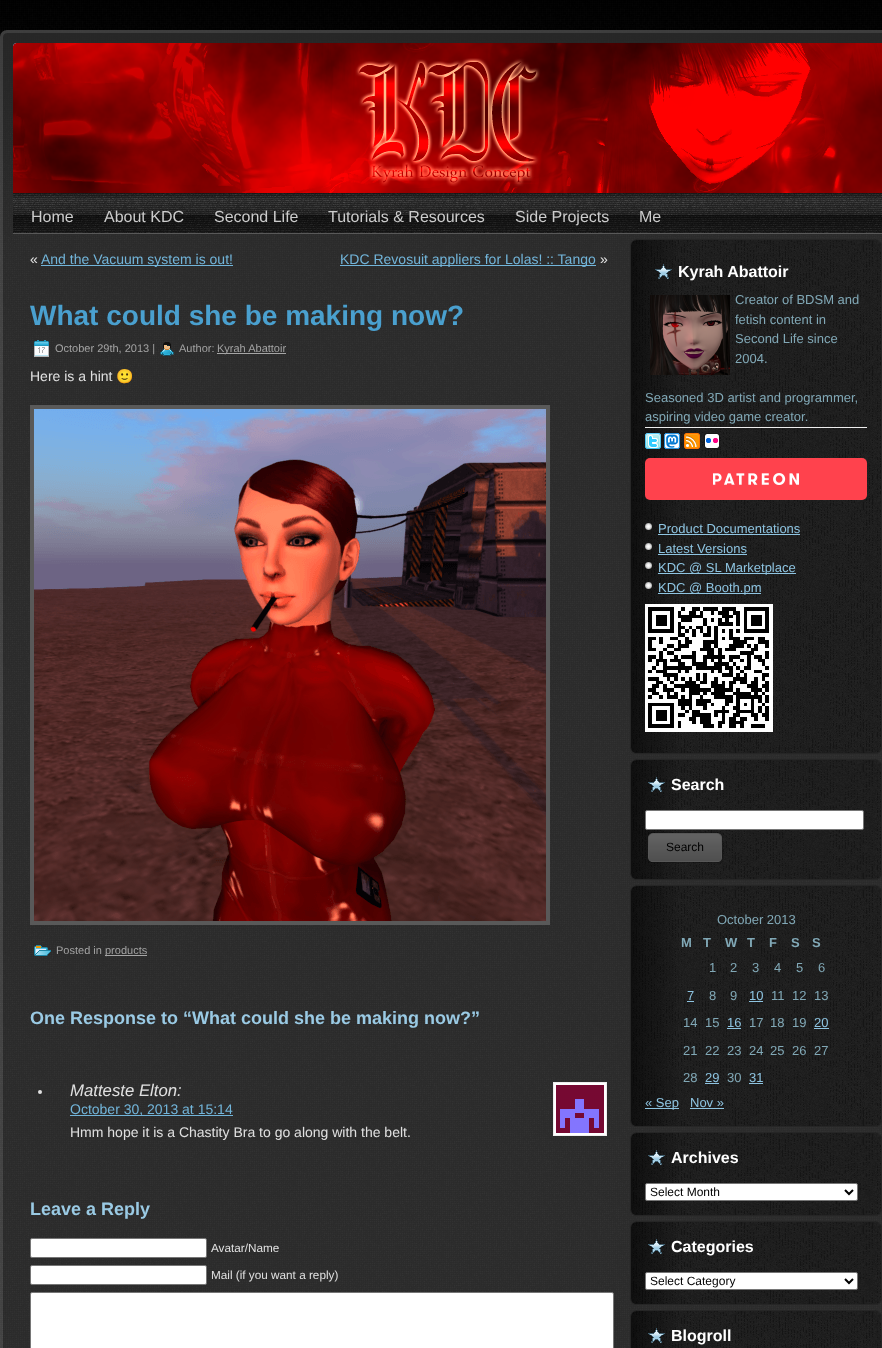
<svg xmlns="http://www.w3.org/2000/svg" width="882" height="1348">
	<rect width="100%" height="100%" fill="#FFFFFF" />
	<image x="0" y="250" width="882" height="1098" href="assets/img1.png" />
	<image x="0" y="0" width="882" height="250" href="assets/img2.png" />
	<image x="0" y="30" width="7" height="7" href="assets/img3.png" />
	<image x="7" y="30" width="875" height="7" href="assets/img4.png" />
	<image x="0" y="37" width="7" height="1311" href="assets/img5.png" />
	<rect x="7" y="37" width="875" height="1311" fill="#363636" fill-opacity="0.7" />
	<image x="13" y="43" width="869" height="150" href="assets/img6.png" />
	<image x="13" y="193" width="869" height="41" href="assets/img7.png" />
	<g font-family="Liberation Sans" font-size="16" fill="#CCCCCC">
		<text x="31" y="222">Home</text>
		<text x="104" y="222">About KDC</text>
		<text x="214" y="222">Second Life</text>
		<text x="328" y="222">Tutorials &amp; Resources</text>
		<text x="515" y="222">Side Projects</text>
		<text x="639" y="222">Me</text>
	</g>
	<text x="30" y="264" font-family="Liberation Sans" font-size="14" fill="#E0E0E0">«</text>
	<rect x="41" y="265" width="192" height="1" fill="#72B5DA" />
	<text x="41" y="264" font-family="Liberation Sans" font-size="14" fill="#72B5DA">And the Vacuum system is out!</text>
	<rect x="340" y="265" width="256" height="1" fill="#72B5DA" />
	<text x="340" y="264" font-family="Liberation Sans" font-size="14" fill="#72B5DA">KDC Revosuit appliers for Lolas! :: Tango</text>
	<text x="600" y="264" font-family="Liberation Sans" font-size="14" fill="#E0E0E0">»</text>
	<text x="30" y="325" font-family="Liberation Sans" font-size="28" font-weight="700" fill="#4AA0CF">What could she be making now?</text>
	<image x="34" y="340" width="15" height="17" href="assets/img8.png" />
	<text x="55" y="352" font-family="Liberation Sans" font-size="11" fill="#A3A3A3">October 29th, 2013 |</text>
	<image x="160" y="342" width="14" height="14" href="assets/img9.png" />
	<text x="179" y="352" font-family="Liberation Sans" font-size="11" fill="#A3A3A3">Author:</text>
	<rect x="217" y="353" width="69" height="1" fill="#A6A6A6" />
	<text x="217" y="352" font-family="Liberation Sans" font-size="11" fill="#A3A3A3">Kyrah Abattoir</text>
	<text x="30" y="381" font-family="Liberation Sans" font-size="14" fill="#E0E0E0">Here is a hint</text>
	<text x="116" y="381" font-family="Noto Color Emoji" font-size="14" fill="#E0E0E0">🙂</text>
	<rect x="32" y="407" width="516" height="516" fill="none" stroke="#595959" stroke-width="4" />
	<image x="34" y="409" width="512" height="512" href="assets/img10.png" />
	<image x="34" y="945" width="17" height="11" href="assets/img11.png" />
	<text x="56" y="954" font-family="Liberation Sans" font-size="11" fill="#A3A3A3">Posted in</text>
	<rect x="105" y="955" width="42" height="1" fill="#A6A6A6" />
	<text x="105" y="954" font-family="Liberation Sans" font-size="11" fill="#A3A3A3">products</text>
	<text x="30" y="1024" font-family="Liberation Sans" font-size="18" font-weight="700" fill="#9ACAE4">One Response to “What could she be making now?”</text>
	<circle cx="40" cy="1092" r="2" fill="#E0E0E0" />
	<text x="70" y="1096" font-family="Liberation Sans" font-size="16.75" font-style="italic" fill="#E0E0E0">Matteste Elton:</text>
	<rect x="553.5" y="1082.5" width="53" height="53" fill="#FFFFFF" stroke="#EEEEEE" />
	<image x="556" y="1085" width="48" height="48" href="assets/img12.png" />
	<rect x="70" y="1115" width="163" height="1" fill="#72B5DA" />
	<text x="70" y="1114" font-family="Liberation Sans" font-size="14" fill="#72B5DA">October 30, 2013 at 15:14</text>
	<text x="70" y="1137" font-family="Liberation Sans" font-size="14" fill="#E0E0E0">Hmm hope it is a Chastity Bra to go along with the belt.</text>
	<text x="30" y="1215" font-family="Liberation Sans" font-size="18" font-weight="700" fill="#9ACAE4">Leave a Reply</text>
	<rect x="30.5" y="1238.5" width="176" height="19" rx="1.5" fill="#FFFFFF" stroke="#767676" />
	<text x="211" y="1252" font-family="Liberation Sans" font-size="11.75" fill="#E0E0E0">Avatar/Name</text>
	<rect x="30.5" y="1265.5" width="176" height="19" rx="1.5" fill="#FFFFFF" stroke="#767676" />
	<text x="211" y="1279" font-family="Liberation Sans" font-size="11.75" fill="#E0E0E0">Mail (if you want a reply)</text>
	<rect x="30.5" y="1292.5" width="583" height="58" rx="1.5" fill="#FFFFFF" stroke="#767676" />
	<image x="630" y="239" width="7" height="7" href="assets/img13.png" />
	<image x="637" y="239" width="238" height="7" href="assets/img14.png" />
	<image x="875" y="239" width="7" height="7" href="assets/img15.png" />
	<image x="630" y="246" width="7" height="501" href="assets/img16.png" />
	<image x="637" y="246" width="238" height="501" href="assets/img17.png" />
	<image x="875" y="246" width="7" height="501" href="assets/img18.png" />
	<image x="655" y="264" width="17" height="15" href="assets/img19.png" />
	<text x="678" y="277" font-family="Liberation Sans" font-size="16" font-weight="700" fill="#FFFFFF">Kyrah Abattoir</text>
	<image x="650" y="295" width="80" height="80" href="assets/img20.png" />
	<g font-family="Liberation Sans" font-size="13" fill="#81A8B6">
		<text x="735" y="304">Creator of BDSM and</text>
		<text x="735" y="324">fetish content in</text>
		<text x="735" y="343">Second Life since</text>
		<text x="735" y="363">2004.</text>
		<text x="645" y="402">Seasoned 3D artist and programmer,</text>
		<text x="645" y="421">aspiring video game creator.</text>
	</g>
	<rect x="645" y="427" width="222" height="1" fill="#EEEEEE" />
	<image x="645" y="433" width="16" height="16" href="assets/img21.png" />
	<image x="664" y="433" width="16" height="16" href="assets/img22.png" />
	<image x="684" y="433" width="16" height="16" href="assets/img23.png" />
	<image x="704" y="433" width="16" height="16" href="assets/img24.png" />
	<rect x="645" y="458" width="222" height="42" rx="5" fill="#FF424D" />
	<image x="713" y="473" width="86" height="12" href="assets/img25.png" />
	<image x="645" y="523" width="7" height="7" href="assets/img26.png" />
	<text x="658" y="533" font-family="Liberation Sans" font-size="13" fill="#8EC4E1">Product Documentations</text>
	<rect x="658" y="534" width="142" height="1" fill="#8EC4E1" />
	<image x="645" y="543" width="7" height="7" href="assets/img27.png" />
	<text x="658" y="553" font-family="Liberation Sans" font-size="13" fill="#8EC4E1">Latest Versions</text>
	<rect x="658" y="554" width="89" height="1" fill="#8EC4E1" />
	<image x="645" y="562" width="7" height="7" href="assets/img28.png" />
	<rect x="658" y="573" width="138" height="1" fill="#8EC4E1" />
	<text x="658" y="572" font-family="Liberation Sans" font-size="13" fill="#8EC4E1">KDC @ SL Marketplace</text>
	<image x="645" y="582" width="7" height="7" href="assets/img29.png" />
	<rect x="658" y="593" width="103" height="1" fill="#8EC4E1" />
	<text x="658" y="592" font-family="Liberation Sans" font-size="13" fill="#8EC4E1">KDC @ Booth.pm</text>
	<image x="645" y="604" width="128" height="128" href="assets/img30.png" />
	<image x="630" y="747" width="7" height="7" href="assets/img31.png" />
	<image x="637" y="747" width="238" height="7" href="assets/img32.png" />
	<image x="875" y="747" width="7" height="7" href="assets/img33.png" />
	<image x="630" y="759" width="7" height="7" href="assets/img34.png" />
	<image x="637" y="759" width="238" height="7" href="assets/img14.png" />
	<image x="875" y="759" width="7" height="7" href="assets/img35.png" />
	<image x="630" y="766" width="7" height="107" href="assets/img36.png" />
	<image x="637" y="766" width="238" height="107" href="assets/img37.png" />
	<image x="875" y="766" width="7" height="107" href="assets/img38.png" />
	<image x="648" y="777" width="17" height="15" href="assets/img39.png" />
	<text x="671" y="790" font-family="Liberation Sans" font-size="16" font-weight="700" fill="#FFFFFF">Search</text>
	<rect x="645.5" y="810.5" width="218" height="19" rx="1.5" fill="#FFFFFF" stroke="#767676" />
	<image x="648" y="832" width="66" height="31" href="assets/img40.png" />
	<image x="714" y="832" width="9" height="31" href="assets/img41.png" />
	<text x="666" y="851" font-family="Liberation Sans" font-size="12" fill="#000000">Search</text>
	<image x="630" y="873" width="7" height="7" href="assets/img42.png" />
	<image x="637" y="873" width="238" height="7" href="assets/img32.png" />
	<image x="875" y="873" width="7" height="7" href="assets/img43.png" />
	<image x="630" y="885" width="7" height="7" href="assets/img44.png" />
	<image x="637" y="885" width="238" height="7" href="assets/img14.png" />
	<image x="875" y="885" width="7" height="7" href="assets/img45.png" />
	<image x="630" y="892" width="7" height="228" href="assets/img46.png" />
	<image x="637" y="892" width="238" height="228" href="assets/img47.png" />
	<image x="875" y="892" width="7" height="228" href="assets/img48.png" />
	<text x="717" y="924" font-family="Liberation Sans" font-size="13" fill="#81A8B6">October 2013</text>
	<g font-family="Liberation Sans" font-size="13" font-weight="700" fill="#81A8B6">
		<text x="681" y="947">M</text>
		<text x="703" y="947">T</text>
		<text x="725" y="947">W</text>
		<text x="747" y="947">T</text>
		<text x="769" y="947">F</text>
		<text x="791" y="947">S</text>
		<text x="812" y="947">S</text>
	</g>
	<g font-family="Liberation Sans" font-size="13" fill="#81A8B6">
		<text x="709" y="972">1</text>
		<text x="730" y="972">2</text>
		<text x="752" y="972">3</text>
		<text x="774" y="972">4</text>
		<text x="796" y="972">5</text>
		<text x="818" y="972">6</text>
	</g>
	<text x="687" y="1000" font-family="Liberation Sans" font-size="13" fill="#8EC4E1">7</text>
	<rect x="687" y="1001" width="7" height="1" fill="#8EC4E1" />
	<g font-family="Liberation Sans" font-size="13" fill="#81A8B6">
		<text x="709" y="1000">8</text>
		<text x="730" y="1000">9</text>
	</g>
	<text x="749" y="1000" font-family="Liberation Sans" font-size="13" fill="#8EC4E1">10</text>
	<rect x="749" y="1001" width="14" height="1" fill="#8EC4E1" />
	<g font-family="Liberation Sans" font-size="13" fill="#81A8B6">
		<text x="771" y="1000">11</text>
		<text x="792" y="1000">12</text>
		<text x="814" y="1000">13</text>
		<text x="683" y="1027">14</text>
		<text x="705" y="1027">15</text>
	</g>
	<text x="727" y="1027" font-family="Liberation Sans" font-size="13" fill="#8EC4E1">16</text>
	<rect x="727" y="1028" width="14" height="1" fill="#8EC4E1" />
	<g font-family="Liberation Sans" font-size="13" fill="#81A8B6">
		<text x="749" y="1027">17</text>
		<text x="770" y="1027">18</text>
		<text x="792" y="1027">19</text>
	</g>
	<text x="814" y="1027" font-family="Liberation Sans" font-size="13" fill="#8EC4E1">20</text>
	<rect x="814" y="1028" width="15" height="1" fill="#8EC4E1" />
	<g font-family="Liberation Sans" font-size="13" fill="#81A8B6">
		<text x="683" y="1055">21</text>
		<text x="705" y="1055">22</text>
		<text x="727" y="1055">23</text>
		<text x="749" y="1055">24</text>
		<text x="770" y="1055">25</text>
		<text x="792" y="1055">26</text>
		<text x="814" y="1055">27</text>
		<text x="683" y="1082">28</text>
	</g>
	<text x="705" y="1082" font-family="Liberation Sans" font-size="13" fill="#8EC4E1">29</text>
	<rect x="705" y="1083" width="14" height="1" fill="#8EC4E1" />
	<text x="727" y="1082" font-family="Liberation Sans" font-size="13" fill="#81A8B6">30</text>
	<text x="749" y="1082" font-family="Liberation Sans" font-size="13" fill="#8EC4E1">31</text>
	<rect x="749" y="1083" width="14" height="1" fill="#8EC4E1" />
	<rect x="645" y="1108" width="34" height="1" fill="#8EC4E1" />
	<g font-family="Liberation Sans" font-size="13" fill="#8EC4E1">
		<text x="645" y="1107">« Sep</text>
		<text x="690" y="1107">Nov »</text>
	</g>
	<rect x="690" y="1108" width="34" height="1" fill="#8EC4E1" />
	<image x="630" y="1120" width="7" height="7" href="assets/img49.png" />
	<image x="637" y="1120" width="238" height="7" href="assets/img32.png" />
	<image x="875" y="1120" width="7" height="7" href="assets/img50.png" />
	<image x="630" y="1132" width="7" height="7" href="assets/img51.png" />
	<image x="637" y="1132" width="238" height="7" href="assets/img14.png" />
	<image x="875" y="1132" width="7" height="7" href="assets/img52.png" />
	<image x="630" y="1139" width="7" height="70" href="assets/img53.png" />
	<image x="637" y="1139" width="238" height="70" href="assets/img54.png" />
	<image x="875" y="1139" width="7" height="70" href="assets/img55.png" />
	<image x="648" y="1150" width="17" height="15" href="assets/img39.png" />
	<text x="671" y="1163" font-family="Liberation Sans" font-size="16" font-weight="700" fill="#FFFFFF">Archives</text>
	<rect x="645.5" y="1183.5" width="212" height="17" rx="1.5" fill="#FFFFFF" stroke="#767676" />
	<path d="M845 1190L849 1194L853 1190" fill="none" stroke="#000000" stroke-width="2" />
	<text x="650" y="1196" font-family="Liberation Sans" font-size="12" fill="#000000">Select Month</text>
	<image x="630" y="1209" width="7" height="7" href="assets/img56.png" />
	<image x="637" y="1209" width="238" height="7" href="assets/img32.png" />
	<image x="875" y="1209" width="7" height="7" href="assets/img57.png" />
	<image x="630" y="1221" width="7" height="7" href="assets/img58.png" />
	<image x="637" y="1221" width="238" height="7" href="assets/img14.png" />
	<image x="875" y="1221" width="7" height="7" href="assets/img59.png" />
	<image x="630" y="1228" width="7" height="70" href="assets/img53.png" />
	<image x="637" y="1228" width="238" height="70" href="assets/img54.png" />
	<image x="875" y="1228" width="7" height="70" href="assets/img55.png" />
	<image x="648" y="1239" width="17" height="15" href="assets/img39.png" />
	<text x="671" y="1252" font-family="Liberation Sans" font-size="16" font-weight="700" fill="#FFFFFF">Categories</text>
	<rect x="645.5" y="1272.5" width="212" height="17" rx="1.5" fill="#FFFFFF" stroke="#767676" />
	<path d="M845 1279L849 1283L853 1279" fill="none" stroke="#000000" stroke-width="2" />
	<text x="650" y="1285" font-family="Liberation Sans" font-size="12" fill="#000000">Select Category</text>
	<image x="630" y="1298" width="7" height="7" href="assets/img60.png" />
	<image x="637" y="1298" width="238" height="7" href="assets/img32.png" />
	<image x="875" y="1298" width="7" height="7" href="assets/img61.png" />
	<image x="630" y="1310" width="7" height="7" href="assets/img62.png" />
	<image x="637" y="1310" width="238" height="7" href="assets/img14.png" />
	<image x="875" y="1310" width="7" height="7" href="assets/img63.png" />
	<image x="630" y="1317" width="7" height="31" href="assets/img64.png" />
	<image x="637" y="1317" width="238" height="31" href="assets/img65.png" />
	<image x="875" y="1317" width="7" height="31" href="assets/img66.png" />
	<image x="648" y="1328" width="17" height="15" href="assets/img39.png" />
	<text x="671" y="1341" font-family="Liberation Sans" font-size="16" font-weight="700" fill="#FFFFFF">Blogroll</text>
</svg>
